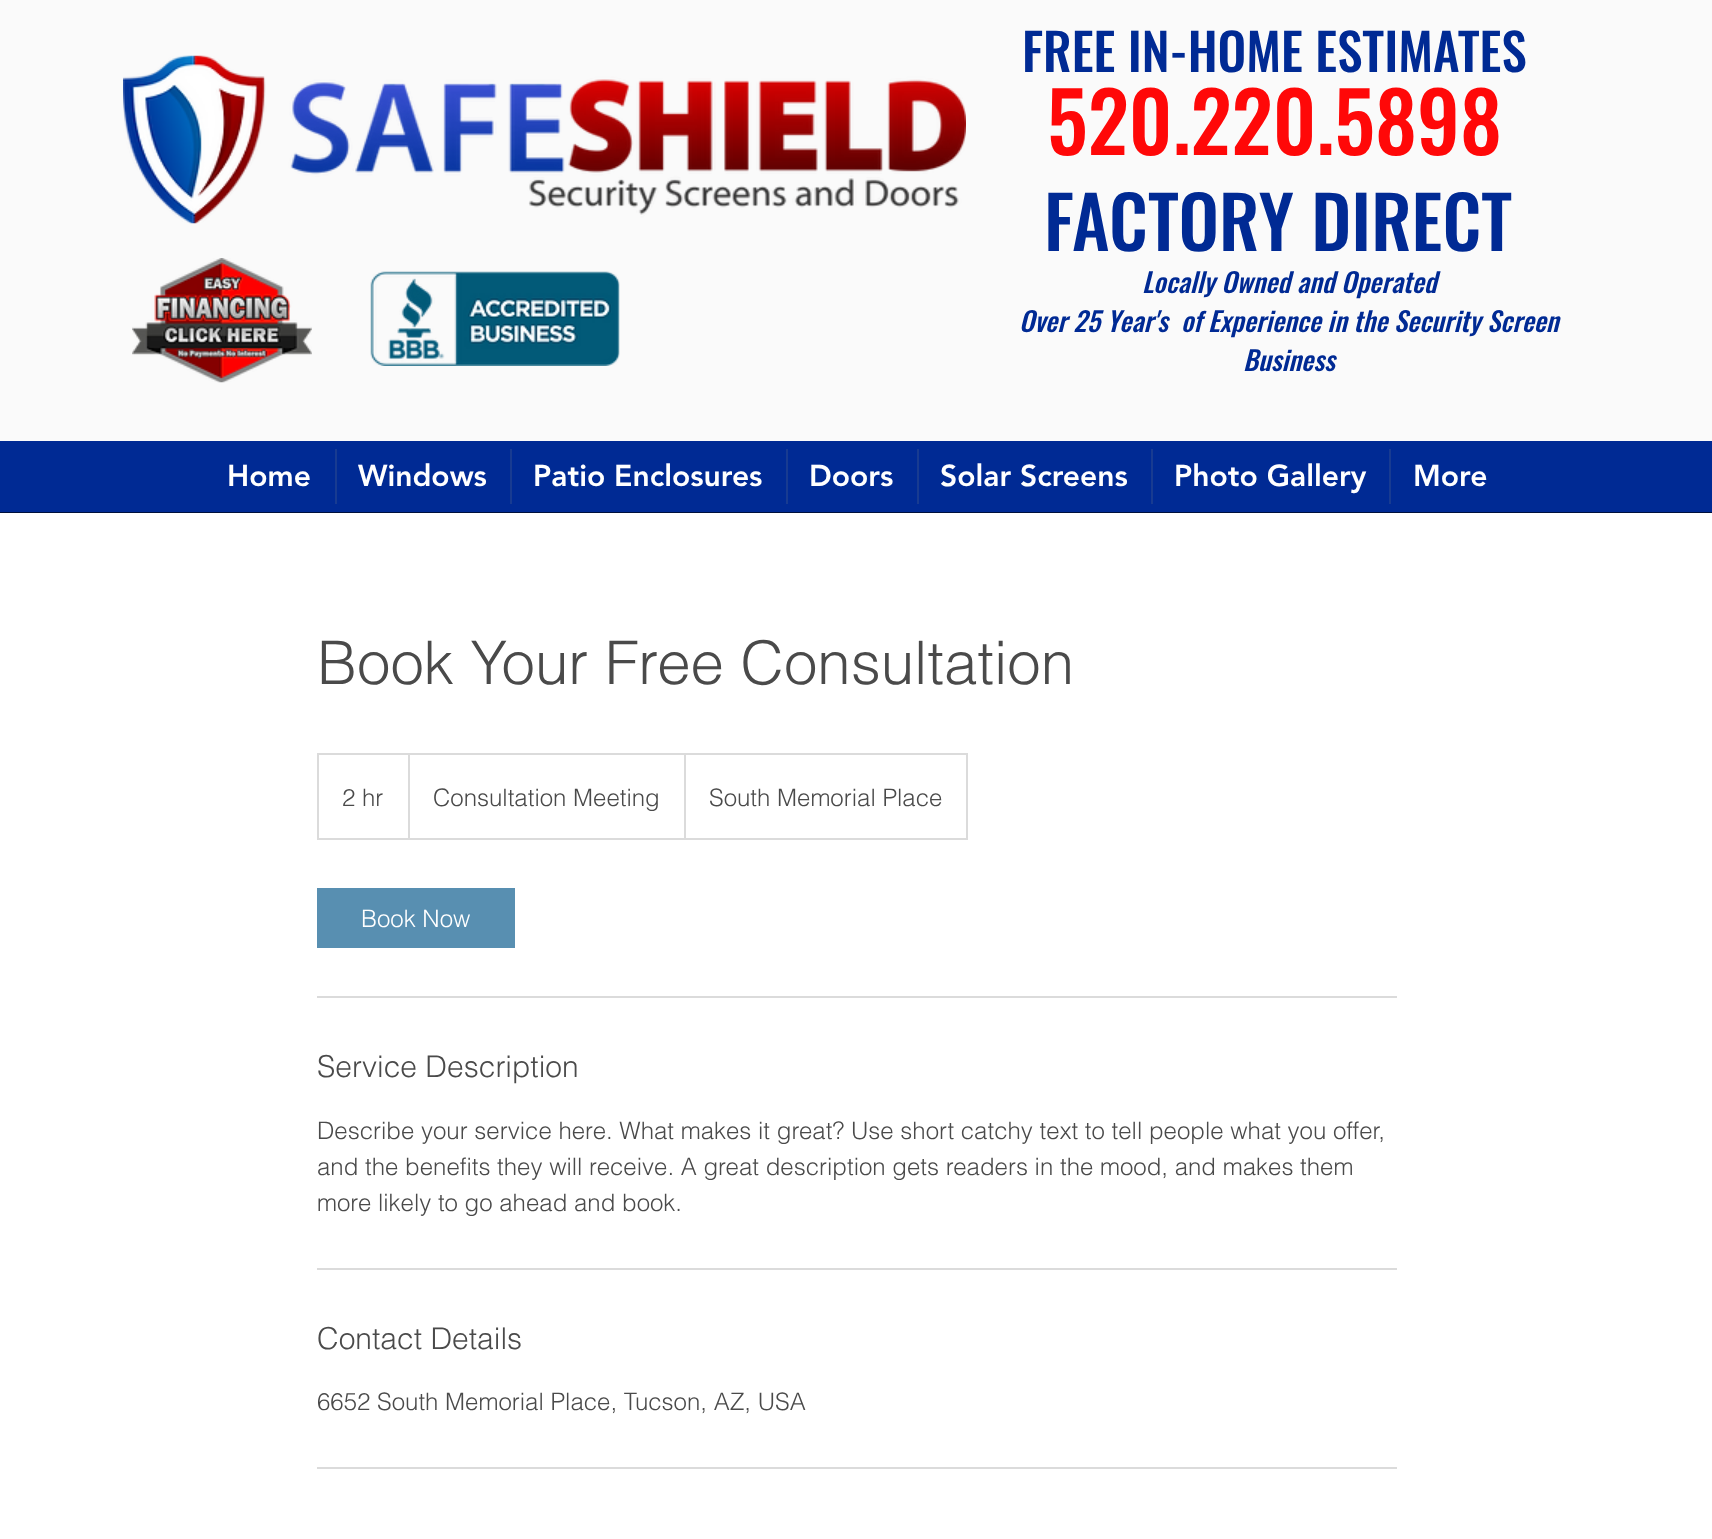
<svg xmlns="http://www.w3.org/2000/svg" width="1712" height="1539">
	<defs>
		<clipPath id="clip1"><rect x="318" y="755" width="648" height="84" /></clipPath>
	</defs>
	<rect width="100%" height="100%" fill="#002A94" />
	<rect x="0" y="0" width="1712" height="441" fill="#FAFAFA" />
	<image x="123" y="55" width="843" height="169" href="assets/img1.png" />
	<text x="1022" y="72" font-family="Oswald" font-size="51" font-weight="500" fill="#002A94">FREE IN-HOME ESTIMATES</text>
	<text x="1047" y="155" font-family="Oswald" font-size="82.5" font-weight="500" fill="#FF0808">520.220.5898</text>
	<text x="1044" y="251" font-family="Oswald" font-size="72" font-weight="500" fill="#002A94">FACTORY DIRECT</text>
	<image x="132" y="258" width="180" height="125" href="assets/img2.png" />
	<image x="370" y="271" width="250" height="95" href="assets/img3.png" />
	<g font-family="Oswald" font-size="27" font-weight="500" font-style="italic" fill="#002A94">
		<text x="1142" y="293">Locally Owned and Operated</text>
		<text x="1019" y="332" xml:space="preserve">Over 25 Year's  of Experience in the Security Screen</text>
		<text x="1243" y="371">Business</text>
	</g>
	<text x="227" y="486" font-family="'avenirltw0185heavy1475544'" font-size="30" font-weight="900" fill="#FFFFFF">Home</text>
	<rect x="335" y="449" width="2" height="55" fill="#183B91" />
	<text x="358" y="486" font-family="'avenirltw0185heavy1475544'" font-size="30" font-weight="900" fill="#FFFFFF">Windows</text>
	<rect x="510" y="449" width="2" height="55" fill="#183B91" />
	<text x="533" y="486" font-family="'avenirltw0185heavy1475544'" font-size="30" font-weight="900" fill="#FFFFFF">Patio Enclosures</text>
	<rect x="786" y="449" width="2" height="55" fill="#183B91" />
	<text x="809" y="486" font-family="'avenirltw0185heavy1475544'" font-size="30" font-weight="900" fill="#FFFFFF">Doors</text>
	<rect x="917" y="449" width="2" height="55" fill="#183B91" />
	<text x="940" y="486" font-family="'avenirltw0185heavy1475544'" font-size="30" font-weight="900" fill="#FFFFFF">Solar Screens</text>
	<rect x="1151" y="449" width="2" height="55" fill="#183B91" />
	<text x="1174" y="486" font-family="'avenirltw0185heavy1475544'" font-size="30" font-weight="900" fill="#FFFFFF">Photo Gallery</text>
	<rect x="1389" y="449" width="2" height="55" fill="#183B91" />
	<text x="1413" y="486" font-family="'avenirltw0185heavy1475544'" font-size="30" font-weight="900" fill="#FFFFFF">More</text>
	<rect x="0" y="512" width="1712" height="1" fill="#000000" fill-opacity="0.6" />
	<rect x="0" y="513" width="1712" height="1026" fill="#FFFFFF" />
	<text x="317" y="684" font-family="helvetica" font-size="60" font-weight="300" fill="#4A4A4A">Book Your Free Consultation</text>
	<rect x="318" y="754" width="649" height="85" fill="none" stroke="#DBDBDB" stroke-width="2" />
	<text x="342" y="806" font-family="helvetica" font-size="24" font-weight="300" fill="#4A4A4A">2 hr</text>
	<g clip-path="url(#clip1)">
		<path d="M408 838V753L410 754V838Z" fill="#DBDBDB" />
	</g>
	<text x="433" y="806" font-family="helvetica" font-size="24" font-weight="300" fill="#4A4A4A">Consultation Meeting</text>
	<g clip-path="url(#clip1)">
		<path d="M684 838V753L686 754V838Z" fill="#DBDBDB" />
	</g>
	<text x="709" y="806" font-family="helvetica" font-size="24" font-weight="300" fill="#4A4A4A">South Memorial Place</text>
	<rect x="317" y="888" width="198" height="60" fill="#588FB1" />
	<text x="361" y="927" font-family="helvetica" font-size="24" font-weight="300" fill="#FFFFFF">Book Now</text>
	<rect x="317" y="996" width="1080" height="2" fill="#DBDBDB" />
	<text x="317" y="1077" font-family="helvetica" font-size="30" font-weight="300" fill="#4A4A4A">Service Description</text>
	<g font-family="helvetica" font-size="24" font-weight="300" fill="#4A4A4A">
		<text x="317" y="1139">Describe your service here. What makes it great? Use short catchy text to tell people what you offer,</text>
		<text x="317" y="1175">and the benefits they will receive. A great description gets readers in the mood, and makes them</text>
		<text x="317" y="1211">more likely to go ahead and book.</text>
	</g>
	<rect x="317" y="1268" width="1080" height="2" fill="#DBDBDB" />
	<text x="317" y="1349" font-family="helvetica" font-size="30" font-weight="300" fill="#4A4A4A">Contact Details</text>
	<text x="317" y="1410" font-family="helvetica" font-size="24" font-weight="300" fill="#4A4A4A">6652 South Memorial Place, Tucson, AZ, USA</text>
	<rect x="317" y="1467" width="1080" height="2" fill="#DBDBDB" />
</svg>
